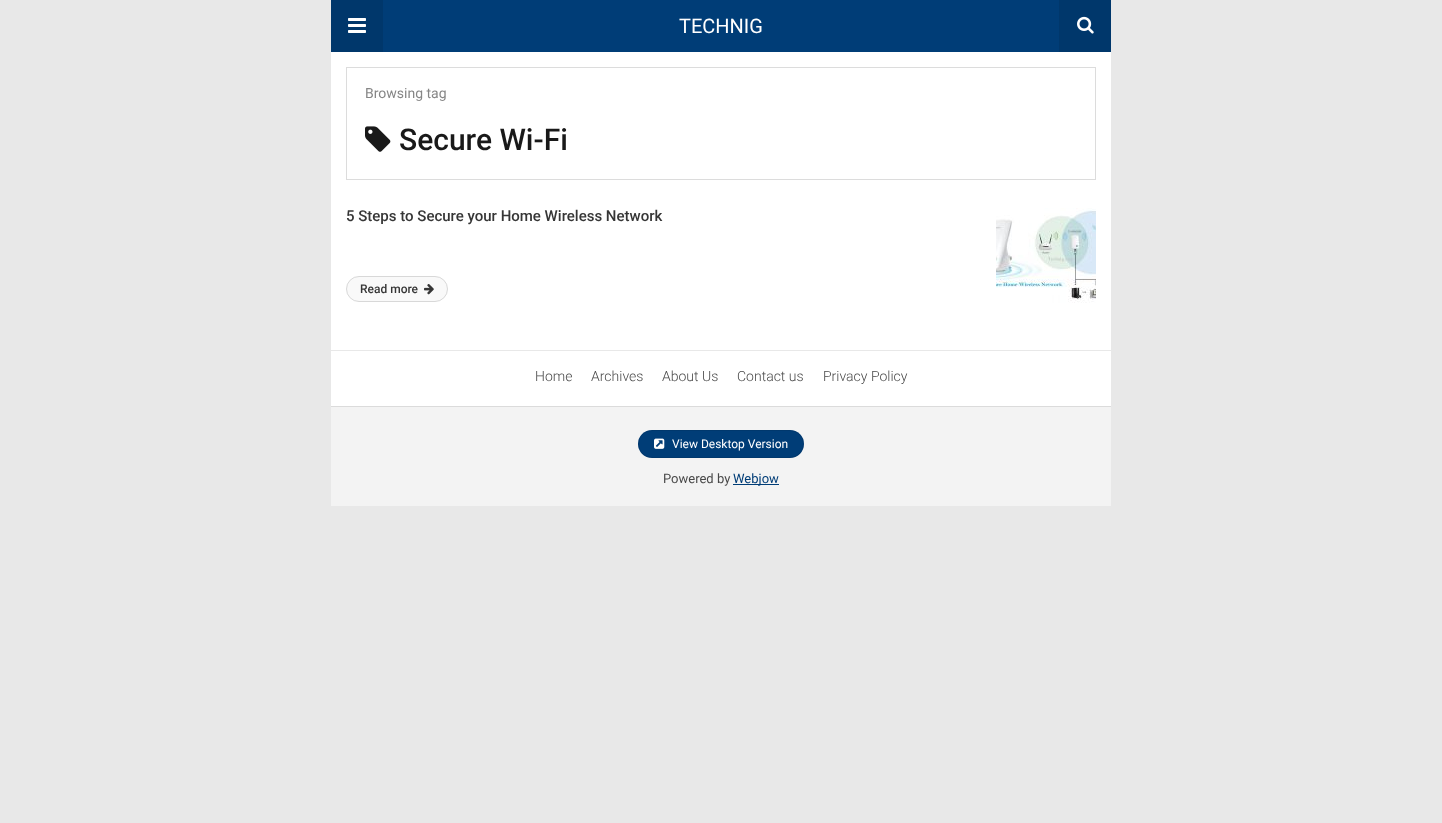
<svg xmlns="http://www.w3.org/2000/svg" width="1442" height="823">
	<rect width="100%" height="100%" fill="#E8E8E8" />
	<rect x="331" y="52" width="780" height="298" fill="#FFFFFF" />
	<rect x="383" y="0" width="676" height="52" fill="#003D77" />
	<rect x="331" y="0" width="52" height="52" fill="#00376B" />
	<image x="348" y="18" width="18" height="15" href="assets/img1.png" />
	<text x="679" y="33" font-family="Roboto" font-size="20" fill="#FFFFFF">TECHNIG</text>
	<rect x="1059" y="0" width="52" height="52" fill="#00376B" />
	<image x="1077" y="16" width="17" height="18" href="assets/img2.png" />
	<rect x="346.5" y="67.5" width="749" height="112" fill="none" stroke="#DCDCDC" />
	<text x="365" y="98" font-family="Roboto" font-size="14" fill="#868686">Browsing tag</text>
	<image x="365" y="126" width="26" height="26" href="assets/img3.png" />
	<text x="399" y="150" font-family="Roboto" font-size="30" font-weight="500" fill="#191919">Secure Wi-Fi</text>
	<text x="346" y="221" font-family="Roboto" font-size="15" font-weight="500" fill="#363636">5 Steps to Secure your Home Wireless Network</text>
	<image x="996" y="208" width="100" height="95" href="assets/img4.png" />
	<rect x="346.5" y="276.5" width="101" height="25" rx="12.5" fill="#F9F9F9" stroke="#D8D8D8" />
	<text x="360" y="293" font-family="Roboto" font-size="12" font-weight="500" fill="#363636">Read more</text>
	<image x="424" y="284" width="10" height="11" href="assets/img5.png" />
	<rect x="331" y="407" width="780" height="99" fill="#F3F3F3" />
	<rect x="331" y="351" width="780" height="55" fill="#FFFFFF" />
	<g font-family="Roboto" font-size="14" font-weight="300" fill="#494949">
		<text x="535" y="381">Home</text>
		<text x="591" y="381">Archives</text>
		<text x="662" y="381">About Us</text>
		<text x="737" y="381">Contact us</text>
		<text x="823" y="381">Privacy Policy</text>
	</g>
	<rect x="331" y="406" width="780" height="1" fill="#DBDBDB" />
	<rect x="638" y="430" width="166" height="28" rx="14" fill="#003D77" />
	<rect x="638.5" y="430.5" width="165" height="27" rx="13.5" fill="none" stroke="#000000" stroke-opacity="0.08" />
	<image x="654" y="438" width="11" height="11" href="assets/img6.png" />
	<text x="672" y="448" font-family="Roboto" font-size="12" fill="#FFFFFF">View Desktop Version</text>
	<text x="663" y="483" font-family="Roboto" font-size="13" fill="#494949">Powered by</text>
	<rect x="733" y="484" width="46" height="1" fill="#003D77" />
	<text x="733" y="483" font-family="Roboto" font-size="13" fill="#003D77">Webjow</text>
</svg>
